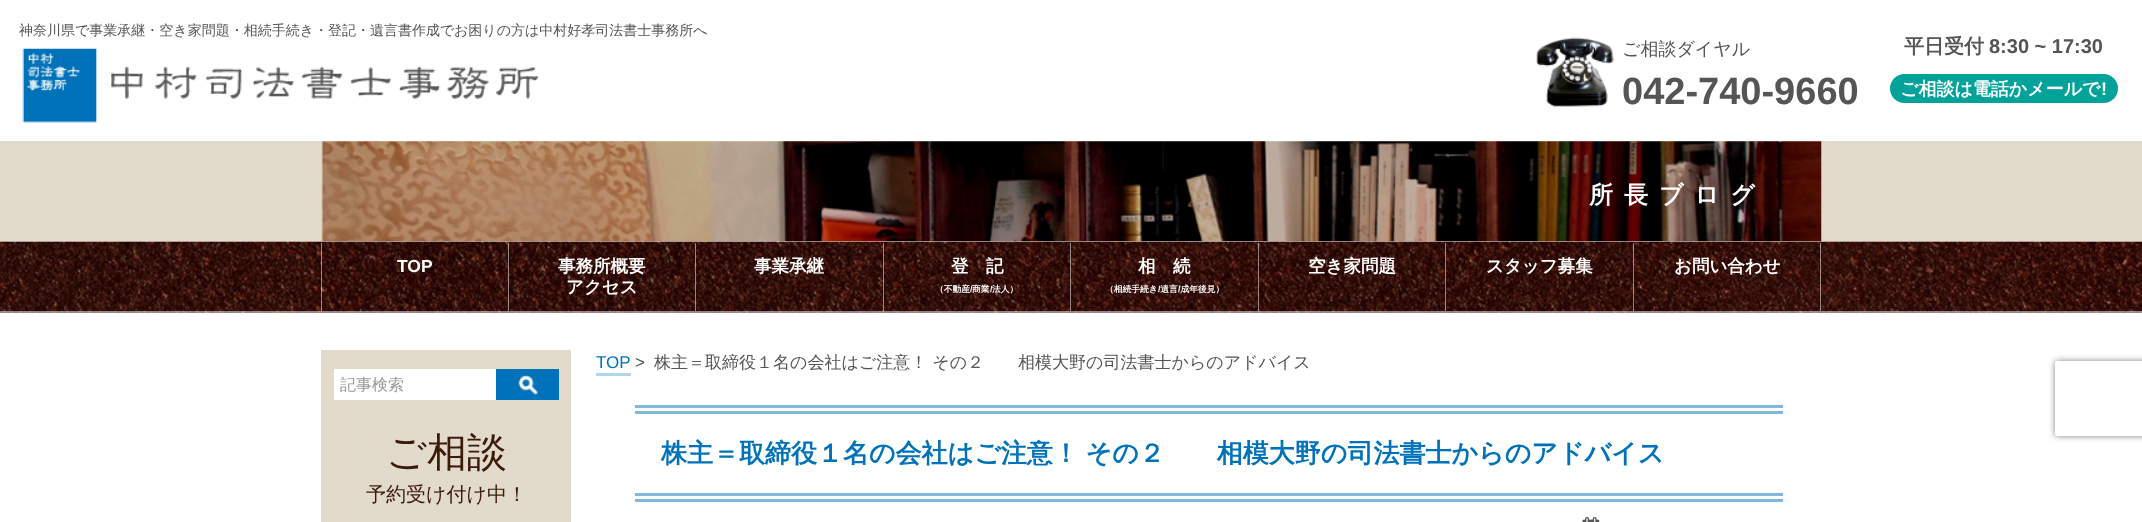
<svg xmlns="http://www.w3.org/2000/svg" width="2142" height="522">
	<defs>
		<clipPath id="clip1"><path d="M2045 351H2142V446H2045ZM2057.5 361H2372.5C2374 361 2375 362 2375 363.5V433.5C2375 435 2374 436 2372.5 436H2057.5C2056 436 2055 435 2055 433.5V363.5C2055 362 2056 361 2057.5 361Z" clip-rule="evenodd" /></clipPath>
	</defs>
	<rect width="100%" height="100%" fill="#FFFFFF" />
	<g font-family="WenQuanYi Zen Hei" font-size="14" font-weight="500" fill="#555555">
		<text x="19" y="35">神奈川県で事業承継・空き家問題・相続手続き・登記・遺言書作成で</text>
		<text x="454" y="35">お困りの方は中村好孝司法書士事務所へ</text>
	</g>
	<image x="22" y="48" width="517" height="75" href="assets/img1.png" />
	<image x="1536" y="37" width="78" height="70" href="assets/img2.png" />
	<text x="1622" y="55" font-family="WenQuanYi Zen Hei" font-size="18" font-weight="500" fill="#555555">ご相談ダイヤル</text>
	<text x="1622" y="104" font-family="Liberation Sans" font-size="38" font-weight="700" fill="#555555">042-740-9660</text>
	<text x="1904" y="53" font-family="WenQuanYi Zen Hei" font-size="20" font-weight="700" fill="#555555">平日受付</text>
	<text x="1989" y="53" font-family="Liberation Sans" font-size="20" font-weight="700" fill="#555555">8:30 ~ 17:30</text>
	<rect x="1890" y="74" width="228" height="29" rx="14.5" fill="#00A29A" />
	<text x="1900" y="95" font-family="WenQuanYi Zen Hei" font-size="18" font-weight="700" fill="#FFFFFF">ご相談は電話かメールで</text>
	<text x="2101" y="95" font-family="Liberation Sans" font-size="18" font-weight="700" fill="#FFFFFF">!</text>
	<rect x="0" y="141" width="2142" height="101" fill="#E2DACB" />
	<rect x="321" y="141" width="1500" height="101" fill="#F4F1EA" />
	<image x="321" y="141" width="1501" height="101" href="assets/img3.png" />
	<text x="1589" y="203" font-family="WenQuanYi Zen Hei" font-size="24" font-weight="700" letter-spacing="11" fill="#FFFFFF">所長ブログ</text>
	<image x="0" y="241" width="2142" height="72" href="assets/img4.png" />
	<rect x="0" y="241" width="2142" height="1" fill="#FFFFFF" fill-opacity="0.5" />
	<rect x="0" y="311" width="2142" height="1" fill="#FFFFFF" fill-opacity="0.5" />
	<rect x="508" y="243" width="1" height="68" fill="#FFFFFF" fill-opacity="0.5" />
	<rect x="321" y="243" width="1" height="68" fill="#FFFFFF" fill-opacity="0.5" />
	<text x="397" y="272" font-family="Liberation Sans" font-size="17.5" font-weight="700" fill="#FFFFFF">TOP</text>
	<rect x="695" y="243" width="1" height="68" fill="#FFFFFF" fill-opacity="0.5" />
	<g font-family="WenQuanYi Zen Hei" font-size="17.5" font-weight="700" fill="#FFFFFF">
		<text x="558" y="272">事務所概要</text>
		<text x="566" y="293">アクセス</text>
	</g>
	<rect x="883" y="243" width="1" height="68" fill="#FFFFFF" fill-opacity="0.5" />
	<text x="754" y="272" font-family="WenQuanYi Zen Hei" font-size="17.5" font-weight="700" fill="#FFFFFF">事業承継</text>
	<rect x="1070" y="243" width="1" height="68" fill="#FFFFFF" fill-opacity="0.5" />
	<text x="951" y="272" font-family="WenQuanYi Zen Hei" font-size="17.5" font-weight="700" fill="#FFFFFF">登　記</text>
	<text x="935" y="292" font-family="WenQuanYi Zen Hei" font-size="8.75" font-weight="700" fill="#FFFFFF">（不動産</text>
	<text x="970" y="292" font-family="Liberation Sans" font-size="8.75" font-weight="700" fill="#FFFFFF">/</text>
	<text x="972" y="292" font-family="WenQuanYi Zen Hei" font-size="8.75" font-weight="700" fill="#FFFFFF">商業</text>
	<text x="990" y="292" font-family="Liberation Sans" font-size="8.75" font-weight="700" fill="#FFFFFF">/</text>
	<text x="992" y="292" font-family="WenQuanYi Zen Hei" font-size="8.75" font-weight="700" fill="#FFFFFF">法人）</text>
	<rect x="1258" y="243" width="1" height="68" fill="#FFFFFF" fill-opacity="0.5" />
	<text x="1138" y="272" font-family="WenQuanYi Zen Hei" font-size="17.5" font-weight="700" fill="#FFFFFF">相　続</text>
	<text x="1105" y="292" font-family="WenQuanYi Zen Hei" font-size="8.75" font-weight="700" fill="#FFFFFF">（相続手続き 遺言 成年後見）</text>
	<g font-family="Liberation Sans" font-size="8.75" font-weight="700" fill="#FFFFFF">
		<text x="1158" y="292">/</text>
		<text x="1178" y="292">/</text>
	</g>
	<rect x="1445" y="243" width="1" height="68" fill="#FFFFFF" fill-opacity="0.5" />
	<text x="1308" y="272" font-family="WenQuanYi Zen Hei" font-size="17.5" font-weight="700" fill="#FFFFFF">空き家問題</text>
	<rect x="1633" y="243" width="1" height="68" fill="#FFFFFF" fill-opacity="0.5" />
	<text x="1486" y="272" font-family="WenQuanYi Zen Hei" font-size="17.5" font-weight="700" fill="#FFFFFF">スタッフ募集</text>
	<rect x="1820" y="243" width="1" height="68" fill="#FFFFFF" fill-opacity="0.5" />
	<text x="1674" y="272" font-family="WenQuanYi Zen Hei" font-size="17.5" font-weight="700" fill="#FFFFFF">お問い合わせ</text>
	<rect x="321" y="350" width="250" height="172" fill="#E2DACB" />
	<rect x="334" y="369" width="162" height="31" fill="#FFFFFF" />
	<text x="340" y="390" font-family="WenQuanYi Zen Hei" font-size="16" font-weight="500" fill="#999999">記事検索</text>
	<rect x="496" y="369" width="63" height="31" fill="#0072BA" />
	<image x="518" y="375" width="20" height="20" href="assets/img5.png" />
	<text x="386" y="466" font-family="WenQuanYi Zen Hei" font-size="40" font-weight="500" fill="#3B1B08">ご相談</text>
	<text x="366" y="501" font-family="WenQuanYi Zen Hei" font-size="20" font-weight="500" fill="#3B1B08">予約受け付け中！</text>
	<text x="596" y="368" font-family="Liberation Sans" font-size="17" fill="#0072BA">TOP</text>
	<rect x="596" y="373" width="35" height="3" fill="#B3D5EA" />
	<text x="635" y="368" font-family="Liberation Sans" font-size="17" fill="#555555">&gt;</text>
	<text x="654" y="368" font-family="WenQuanYi Zen Hei" font-size="17" font-weight="500" fill="#555555">株主＝取締役１名の会社はご注意！ その２　　相模大野の司法書士からのアドバイス</text>
	<rect x="635" y="405" width="1148" height="3" fill="#80B9DD" />
	<rect x="635" y="411" width="1148" height="3" fill="#80B9DD" />
	<rect x="635" y="493" width="1148" height="3" fill="#80B9DD" />
	<rect x="635" y="499" width="1148" height="3" fill="#80B9DD" />
	<text x="661" y="462" word-spacing="-1" font-family="WenQuanYi Zen Hei" font-size="26" font-weight="700" fill="#0072BA">株主＝取締役１名の会社はご注意！ その２　　相模大野の司法書士からのアドバイス</text>
	<image x="1582" y="517" width="18" height="5" href="assets/img6.png" />
	<g clip-path="url(#clip1)">
		<rect x="2055" y="361" width="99" height="75" rx="2.5" fill="#808080" filter="blur(3px)" />
	</g>
</svg>
